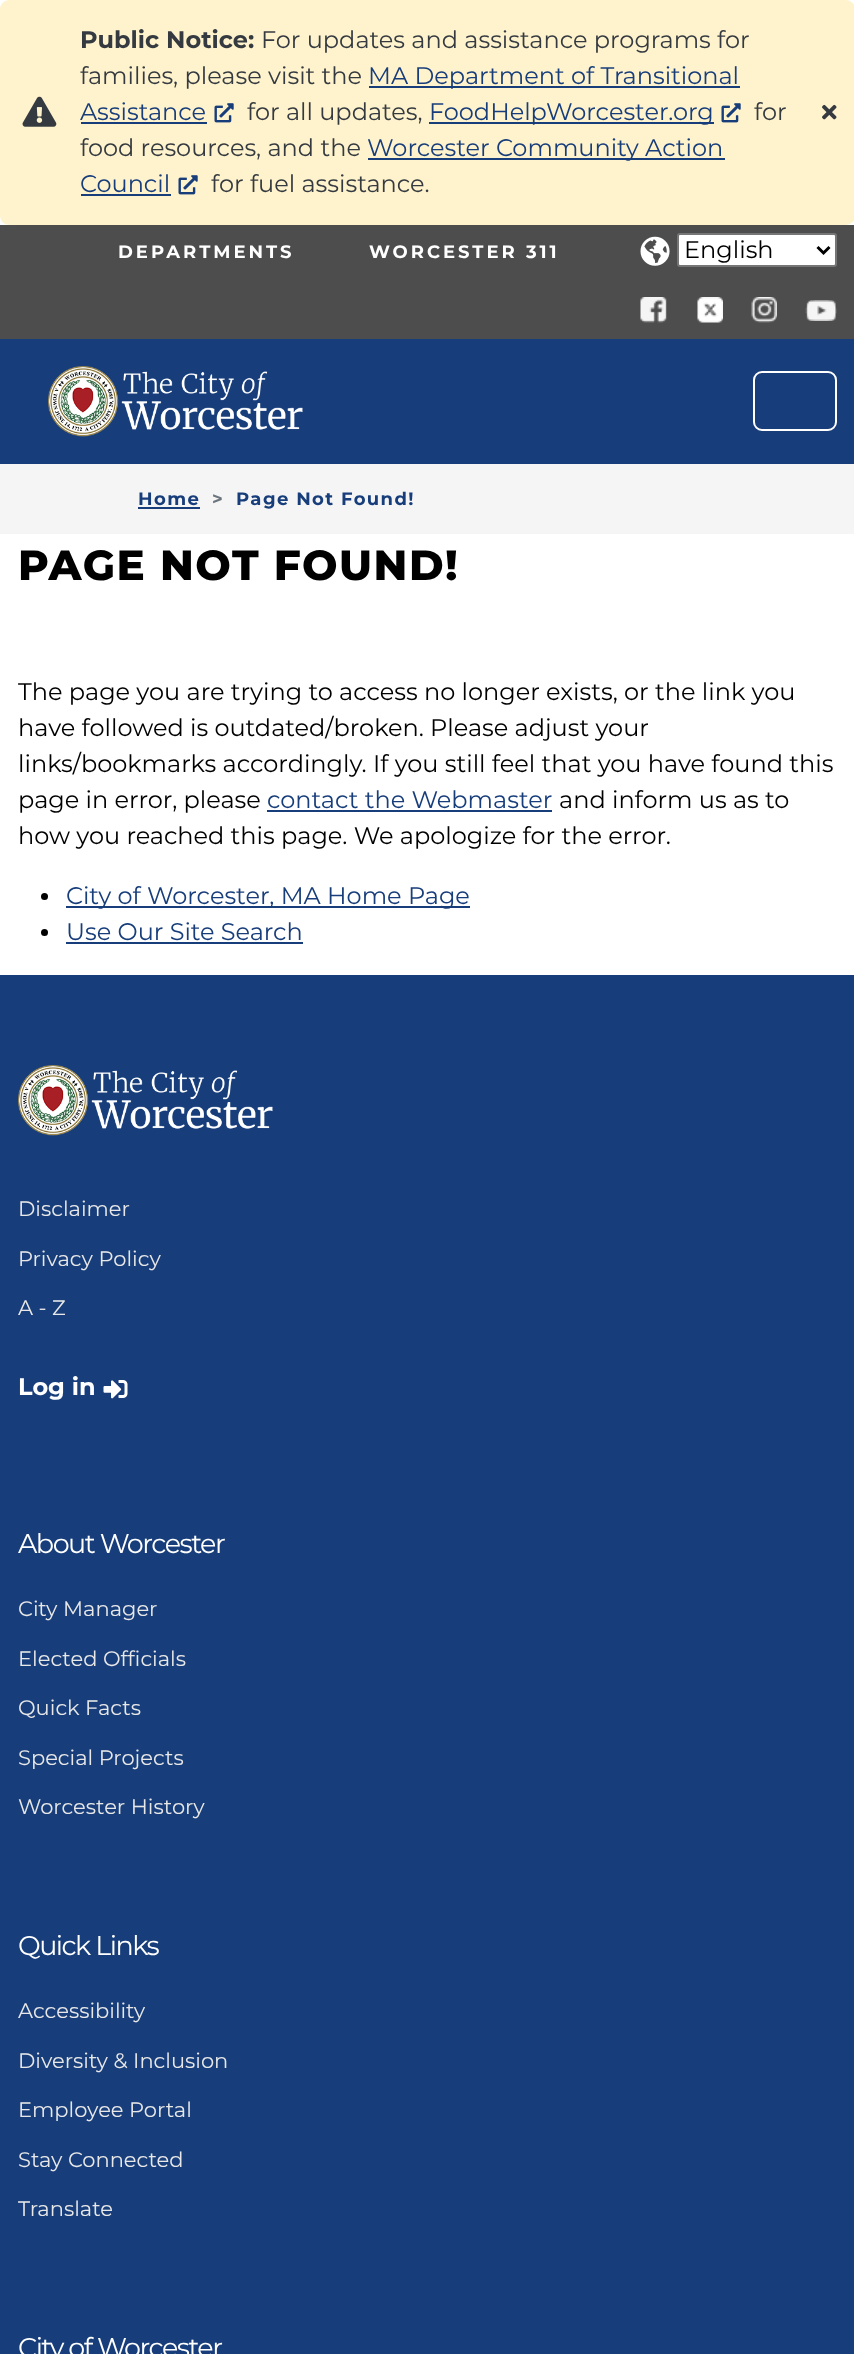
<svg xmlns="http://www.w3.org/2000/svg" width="854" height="2354">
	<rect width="100%" height="100%" fill="#FFFFFF" />
	<rect x="1" y="1" width="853" height="223" rx="8" fill="#FFF3CD" stroke="#FFF3CD" stroke-width="2" />
	<image x="22" y="96" width="35" height="31" href="assets/img1.png" />
	<text x="80" y="48" font-family="Montserrat" font-size="24" font-weight="700" fill="#343A40">Public Notice:</text>
	<g font-family="Montserrat" font-size="24" fill="#343A40">
		<text x="261" y="48">For updates and assistance programs for</text>
		<text x="80" y="84">families, please visit the</text>
	</g>
	<rect x="369" y="86" width="371" height="2" fill="#173D7A" />
	<g font-family="Montserrat" font-size="24" fill="#173D7A">
		<text x="368" y="84">MA Department of Transitional</text>
		<text x="80" y="120">Assistance</text>
	</g>
	<rect x="81" y="122" width="126" height="2" fill="#173D7A" />
	<image x="214" y="103" width="20" height="20" href="assets/img2.png" />
	<text x="247" y="120" font-family="Montserrat" font-size="24" fill="#343A40">for all updates,</text>
	<rect x="429" y="122" width="285" height="2" fill="#173D7A" />
	<text x="429" y="120" font-family="Montserrat" font-size="24" fill="#173D7A">FoodHelpWorcester.org</text>
	<image x="721" y="103" width="20" height="20" href="assets/img2.png" />
	<g font-family="Montserrat" font-size="24" fill="#343A40">
		<text x="754" y="120">for</text>
		<text x="80" y="156">food resources, and the</text>
	</g>
	<rect x="368" y="158" width="357" height="2" fill="#173D7A" />
	<g font-family="Montserrat" font-size="24" fill="#173D7A">
		<text x="367" y="156">Worcester Community Action</text>
		<text x="80" y="192">Council</text>
	</g>
	<rect x="81" y="194" width="90" height="2" fill="#173D7A" />
	<image x="178" y="175" width="20" height="20" href="assets/img2.png" />
	<text x="211" y="192" font-family="Montserrat" font-size="24" fill="#343A40">for fuel assistance.</text>
	<image x="822" y="104" width="15" height="16" href="assets/img3.png" />
	<rect x="0" y="225" width="854" height="114" fill="#4D4D4D" />
	<g font-family="Montserrat" font-size="18" font-weight="700" letter-spacing="3" fill="#FFFFFF">
		<text x="118" y="258">DEPARTMENTS</text>
		<text x="369" y="258">WORCESTER 311</text>
	</g>
	<image x="640" y="236" width="30" height="30" href="assets/img4.png" />
	<rect x="678" y="234" width="158" height="32" rx="2" fill="#FFFFFF" stroke="#767676" stroke-width="2" />
	<path d="M817.5 247L823.5 253L829.5 247" fill="none" stroke="#000000" stroke-width="3" />
	<text x="684" y="258" font-family="Montserrat" font-size="24" fill="#000000">English</text>
	<image x="640" y="297" width="27" height="26" href="assets/img5.png" />
	<image x="697" y="297" width="26" height="26" href="assets/img6.png" />
	<image x="751" y="297" width="26" height="26" href="assets/img7.png" />
	<image x="805" y="300" width="32" height="21" href="assets/img8.png" />
	<rect x="0" y="339" width="854" height="125" fill="#173D7A" />
	<image x="48" y="366" width="255" height="71" href="assets/img9.png" />
	<rect x="754" y="372" width="82" height="58" rx="8" fill="none" stroke="#FFFFFF" stroke-width="2" />
	<rect x="0" y="464" width="854" height="70" fill="#F5F5F5" />
	<text x="138" y="505" font-family="Montserrat" font-size="18" font-weight="700" letter-spacing="1.4" fill="#173D7A">Home</text>
	<rect x="138" y="507" width="62" height="2" fill="#173D7A" />
	<text x="212" y="505" font-family="Montserrat" font-size="18" font-weight="700" letter-spacing="1.4" fill="#6C757D">&gt;</text>
	<text x="236" y="505" font-family="Montserrat" font-size="18" font-weight="700" letter-spacing="1.4" fill="#173D7A">Page Not Found!</text>
	<text x="18" y="580" font-family="Montserrat" font-size="42" font-weight="800" letter-spacing="1.5" fill="#000000">PAGE NOT FOUND!</text>
	<g font-family="Montserrat" font-size="24" fill="#000000">
		<text x="18" y="700">The page you are trying to access no longer exists, or the link you</text>
		<text x="18" y="736">have followed is outdated/broken. Please adjust your</text>
		<text x="18" y="772">links/bookmarks accordingly. If you still feel that you have found this</text>
		<text x="18" y="808">page in error, please</text>
	</g>
	<text x="267" y="808" font-family="Montserrat" font-size="24" fill="#173D7A">contact the Webmaster</text>
	<rect x="267" y="810" width="285" height="2" fill="#173D7A" />
	<g font-family="Montserrat" font-size="24" fill="#000000">
		<text x="559" y="808">and inform us as to</text>
		<text x="18" y="844">how you reached this page. We apologize for the error.</text>
	</g>
	<circle cx="44.5" cy="896.5" r="3.5" fill="#000000" />
	<rect x="66" y="906" width="404" height="2" fill="#173D7A" />
	<text x="66" y="904" font-family="Montserrat" font-size="24" fill="#173D7A">City of Worcester, MA Home Page</text>
	<circle cx="44.5" cy="932.5" r="3.5" fill="#000000" />
	<text x="66" y="940" font-family="Montserrat" font-size="24" fill="#173D7A">Use Our Site Search</text>
	<rect x="66" y="942" width="237" height="2" fill="#173D7A" />
	<rect x="0" y="975" width="854" height="1379" fill="#173D7A" />
	<image x="18" y="1065" width="255" height="71" href="assets/img10.png" />
	<g font-family="Montserrat" font-size="21" fill="#E8E8E8">
		<text x="18" y="1216">Disclaimer</text>
		<text x="18" y="1266">Privacy Policy</text>
		<text x="18" y="1315">A - Z</text>
	</g>
	<text x="18" y="1395" font-family="Montserrat" font-size="24" font-weight="700" fill="#FFFFFF">Log in</text>
	<image x="103" y="1380" width="25" height="19" href="assets/img11.png" />
	<text x="18" y="1553" font-family="Montserrat" font-size="27" letter-spacing="-1.5" fill="#FFFFFF">About Worcester</text>
	<g font-family="Montserrat" font-size="21" fill="#E8E8E8">
		<text x="18" y="1616">City Manager</text>
		<text x="18" y="1666">Elected Officials</text>
		<text x="18" y="1715">Quick Facts</text>
		<text x="18" y="1765">Special Projects</text>
		<text x="18" y="1814">Worcester History</text>
	</g>
	<text x="18" y="1955" font-family="Montserrat" font-size="27" letter-spacing="-1.5" fill="#FFFFFF">Quick Links</text>
	<g font-family="Montserrat" font-size="21" fill="#E8E8E8">
		<text x="18" y="2018">Accessibility</text>
		<text x="18" y="2068">Diversity &amp; Inclusion</text>
		<text x="18" y="2117">Employee Portal</text>
		<text x="18" y="2167">Stay Connected</text>
		<text x="18" y="2216">Translate</text>
	</g>
	<text x="18" y="2357" font-family="Montserrat" font-size="27" letter-spacing="-1.5" fill="#FFFFFF">City of Worcester</text>
</svg>
